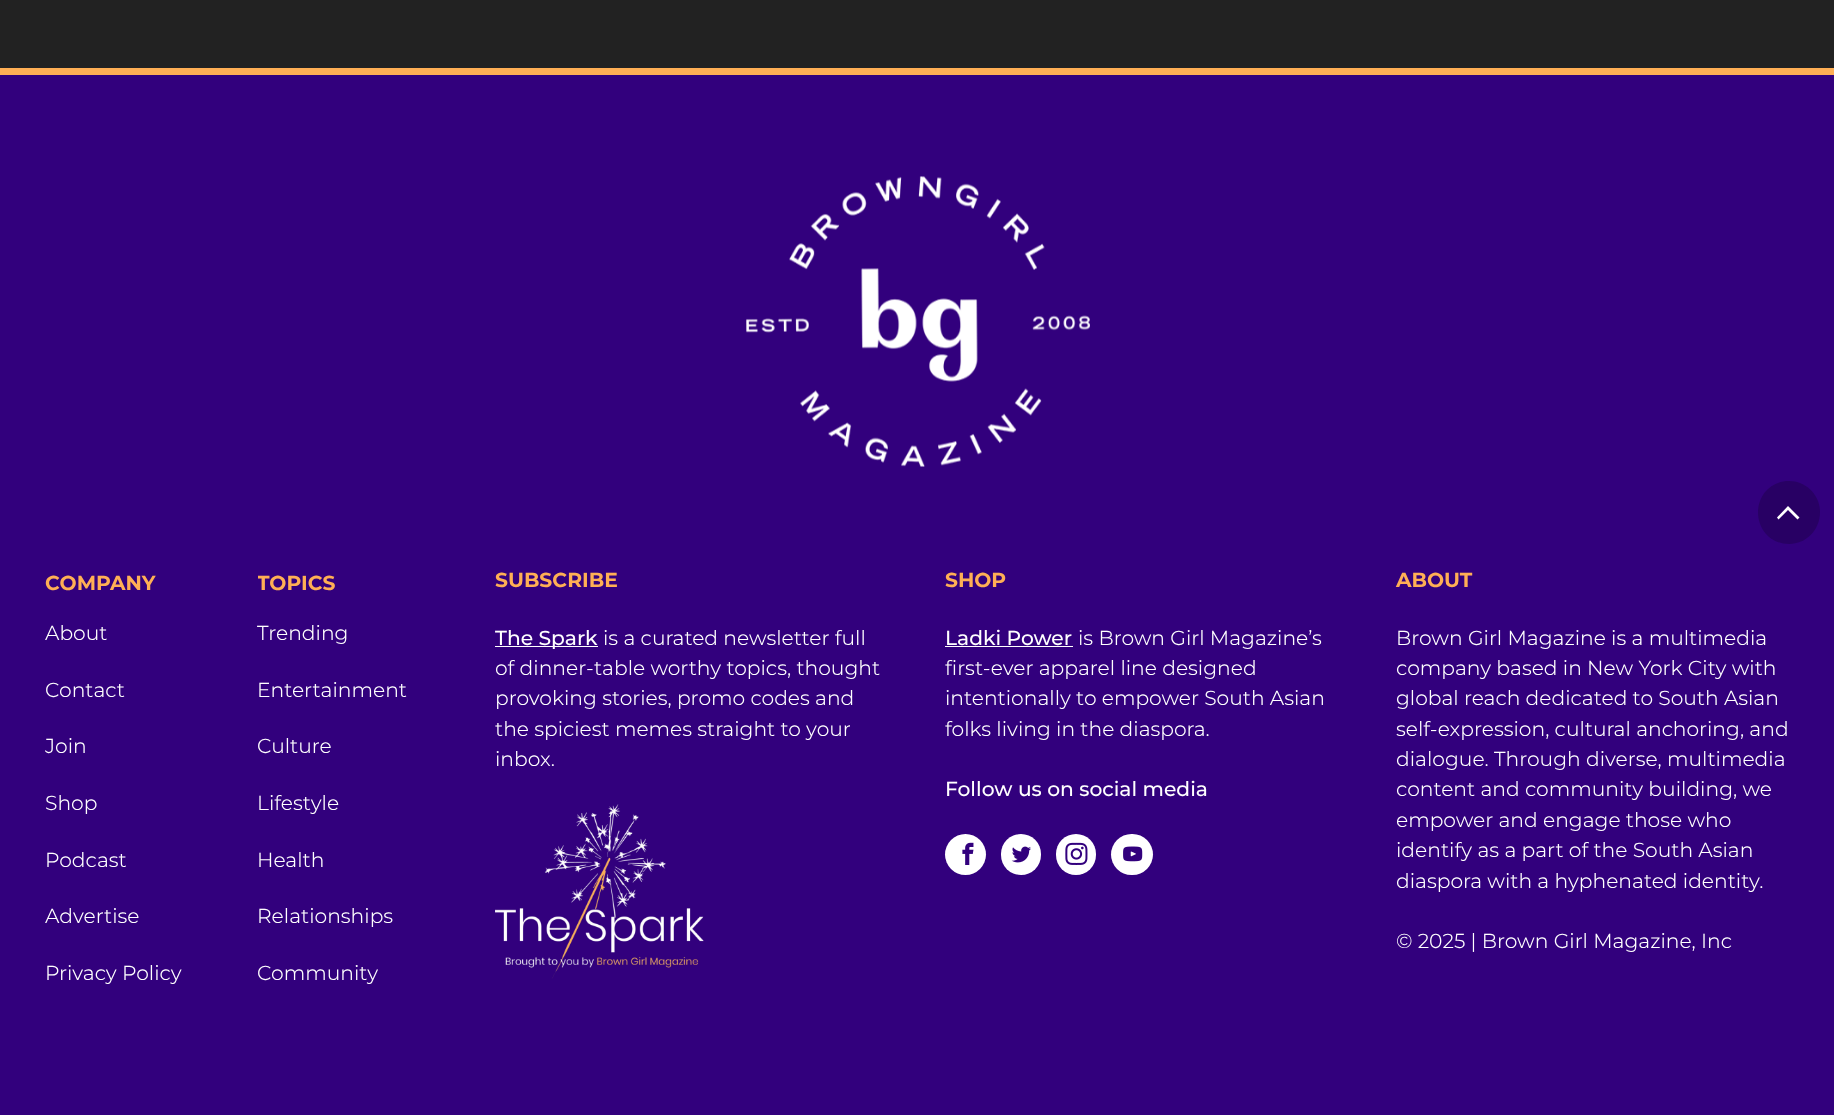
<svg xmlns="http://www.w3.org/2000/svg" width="1834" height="1115">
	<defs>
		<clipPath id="clip1"><rect x="258" y="568" width="182" height="446" /></clipPath>
	</defs>
	<rect width="100%" height="100%" fill="#222222" />
	<rect x="0" y="75" width="1834" height="1040" fill="#32007D" />
	<path d="M1820 512C1820 530 1806 544 1789 544C1771 544 1758 530 1758 512C1758 495 1771 481 1789 481C1806 481 1820 495 1820 512Z" fill="#280064" />
	<path d="M1799.5 517.5L1797.5 519.5L1788 510L1778.5 519.5L1777 517.5L1788 506Z" fill="#FFFFFF" />
	<rect x="0" y="68" width="1834" height="7" fill="#FFAF55" />
	<image x="746" y="176" width="344" height="291" href="assets/img1.png" />
	<text x="45" y="590" font-family="Montserrat" font-size="20.25" font-weight="700" fill="#FFAF55">COMPANY</text>
	<g font-family="Montserrat" font-size="20.25" font-weight="300" fill="#FFFFFF">
		<text x="45" y="640">About</text>
		<text x="45" y="697">Contact</text>
		<text x="45" y="753">Join</text>
		<text x="45" y="810">Shop</text>
		<text x="45" y="867">Podcast</text>
		<text x="45" y="923">Advertise</text>
		<text x="45" y="980">Privacy Policy</text>
	</g>
	<g clip-path="url(#clip1)">
		<text x="257" y="590" font-family="Montserrat" font-size="20.25" font-weight="700" fill="#FFAF55">TOPICS</text>
	</g>
	<g font-family="Montserrat" font-size="20.25" font-weight="300" fill="#FFFFFF">
		<text x="257" y="640">Trending</text>
		<text x="257" y="697">Entertainment</text>
		<text x="257" y="753">Culture</text>
		<text x="257" y="810">Lifestyle</text>
		<text x="257" y="867">Health</text>
		<text x="257" y="923">Relationships</text>
		<text x="257" y="980">Community</text>
	</g>
	<text x="495" y="587" font-family="Montserrat" font-size="20.25" font-weight="700" fill="#FFAF55">SUBSCRIBE</text>
	<rect x="495" y="646" width="103" height="1" fill="#FFFFFF" />
	<text x="495" y="645" font-family="Montserrat" font-size="20.25" font-weight="500" fill="#FFFFFF">The Spark</text>
	<g font-family="Montserrat" font-size="20.25" font-weight="300" fill="#FFFFFF">
		<text x="603" y="645">is a curated newsletter full</text>
		<text x="495" y="675">of dinner-table worthy topics, thought</text>
		<text x="495" y="705">provoking stories, promo codes and</text>
		<text x="495" y="736">the spiciest memes straight to your</text>
		<text x="495" y="766">inbox.</text>
	</g>
	<image x="495" y="804" width="209" height="175" href="assets/img2.png" />
	<text x="945" y="587" font-family="Montserrat" font-size="20.25" font-weight="700" fill="#FFAF55">SHOP</text>
	<text x="945" y="645" font-family="Montserrat" font-size="20.25" font-weight="500" fill="#FFFFFF">Ladki Power</text>
	<rect x="945" y="646" width="128" height="1" fill="#FFFFFF" />
	<g font-family="Montserrat" font-size="20.25" font-weight="300" fill="#FFFFFF">
		<text x="1078" y="645">is Brown Girl Magazine’s</text>
		<text x="945" y="675">first-ever apparel line designed</text>
		<text x="945" y="705">intentionally to empower South Asian</text>
		<text x="945" y="736">folks living in the diaspora.</text>
	</g>
	<text x="945" y="796" font-family="Montserrat" font-size="20.25" font-weight="500" fill="#FFFFFF">Follow us on social media</text>
	<circle cx="965.5" cy="854.5" r="20.5" fill="#FFFFFF" />
	<image x="962" y="842" width="12" height="23" href="assets/img3.png" />
	<rect x="1001" y="834" width="40" height="41" rx="20" fill="#FFFFFF" />
	<image x="1011" y="846" width="20" height="17" href="assets/img4.png" />
	<rect x="1056" y="834" width="40" height="41" rx="20" fill="#FFFFFF" />
	<image x="1065" y="842" width="23" height="23" href="assets/img5.png" />
	<rect x="1111" y="834" width="42" height="41" rx="20.5" fill="#FFFFFF" />
	<image x="1123" y="846" width="20" height="16" href="assets/img6.png" />
	<text x="1396" y="587" font-family="Montserrat" font-size="20.25" font-weight="700" fill="#FFAF55">ABOUT</text>
	<g font-family="Montserrat" font-size="20.25" font-weight="300" fill="#FFFFFF">
		<text x="1396" y="645">Brown Girl Magazine is a multimedia</text>
		<text x="1396" y="675">company based in New York City with</text>
		<text x="1396" y="705">global reach dedicated to South Asian</text>
		<text x="1396" y="736">self-expression, cultural anchoring, and</text>
		<text x="1396" y="766">dialogue. Through diverse, multimedia</text>
		<text x="1396" y="796">content and community building, we</text>
		<text x="1396" y="827">empower and engage those who</text>
		<text x="1396" y="857">identify as a part of the South Asian</text>
		<text x="1396" y="888">diaspora with a hyphenated identity.</text>
		<text x="1396" y="948">© 2025 | Brown Girl Magazine, Inc</text>
	</g>
</svg>
